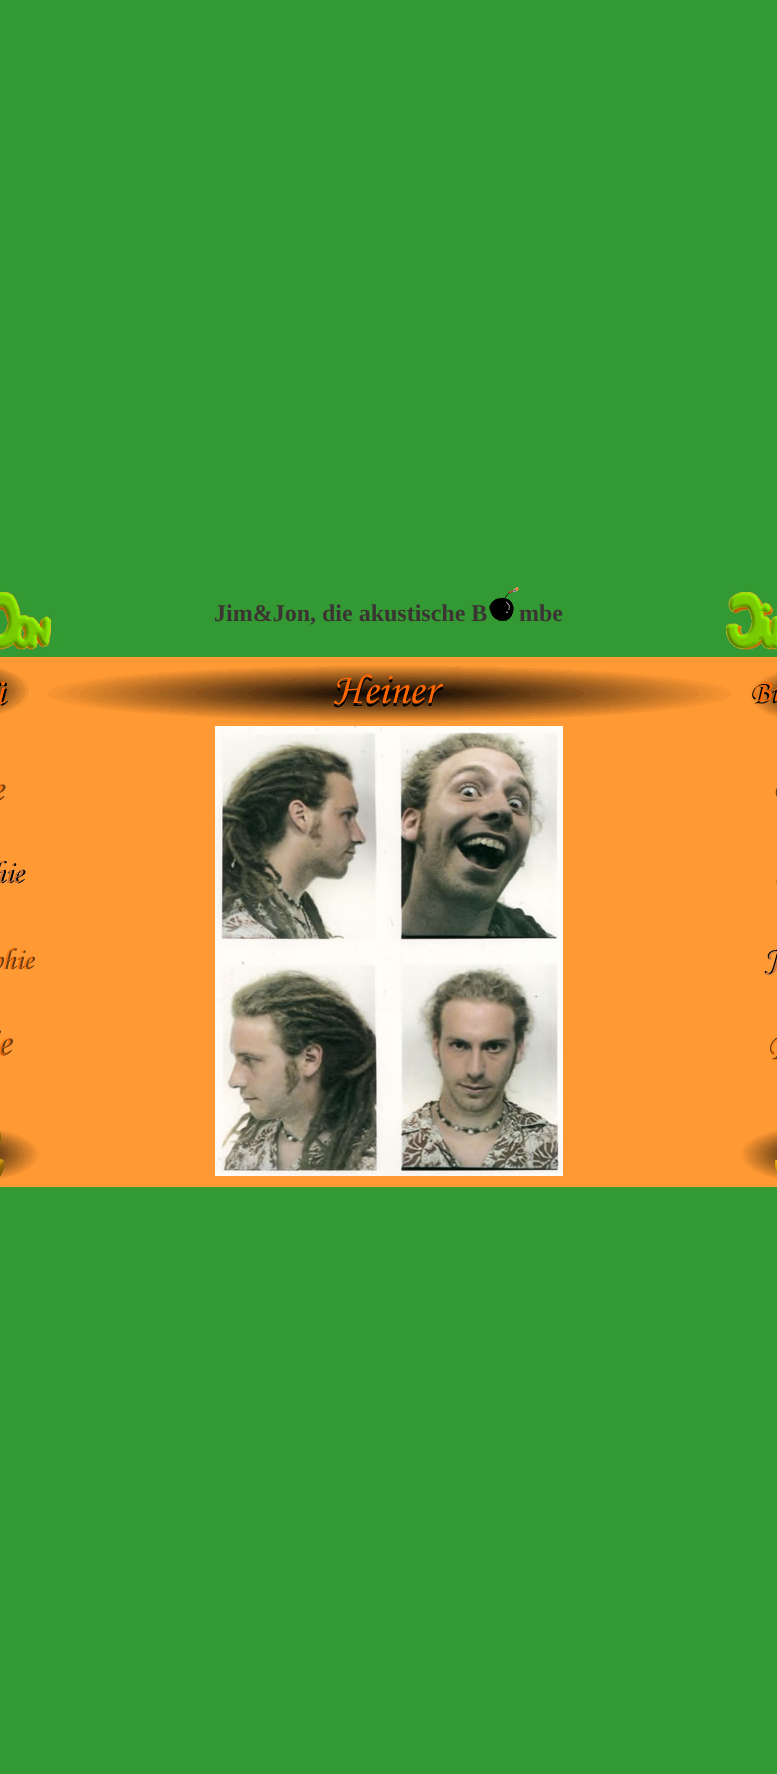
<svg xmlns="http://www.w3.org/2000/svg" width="777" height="1774">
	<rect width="100%" height="100%" fill="#339933" />
	<image x="0" y="587" width="777" height="70" href="assets/img1.png" />
	<text x="214" y="621" font-family="Liberation Serif" font-size="24" font-weight="700" fill="#3B3433">Jim&amp;Jon, die akustische B</text>
	<image x="489" y="587" width="30" height="34" href="assets/img2.png" />
	<text x="519" y="621" font-family="Liberation Serif" font-size="24" font-weight="700" fill="#3B3433">mbe</text>
	<rect x="0" y="657" width="777" height="530" fill="#FF9933" />
	<image x="0" y="668" width="29" height="46" href="assets/img3.png" />
	<image x="47" y="665" width="685" height="57" href="assets/img4.png" />
	<image x="750" y="672" width="27" height="46" href="assets/img5.png" />
	<image x="0" y="784" width="6" height="17" href="assets/img6.png" />
	<image x="215" y="726" width="348" height="450" href="assets/img7.png" />
	<image x="775" y="787" width="2" height="10" href="assets/img8.png" />
	<image x="0" y="861" width="26" height="23" href="assets/img9.png" />
	<image x="776" y="879" width="1" height="5" href="assets/img10.png" />
	<image x="0" y="948" width="35" height="22" href="assets/img11.png" />
	<image x="764" y="949" width="13" height="27" href="assets/img12.png" />
	<image x="0" y="1030" width="13" height="26" href="assets/img13.png" />
	<image x="770" y="1037" width="7" height="24" href="assets/img14.png" />
	<image x="0" y="1130" width="39" height="49" href="assets/img15.png" />
	<image x="741" y="1130" width="36" height="49" href="assets/img16.png" />
</svg>
